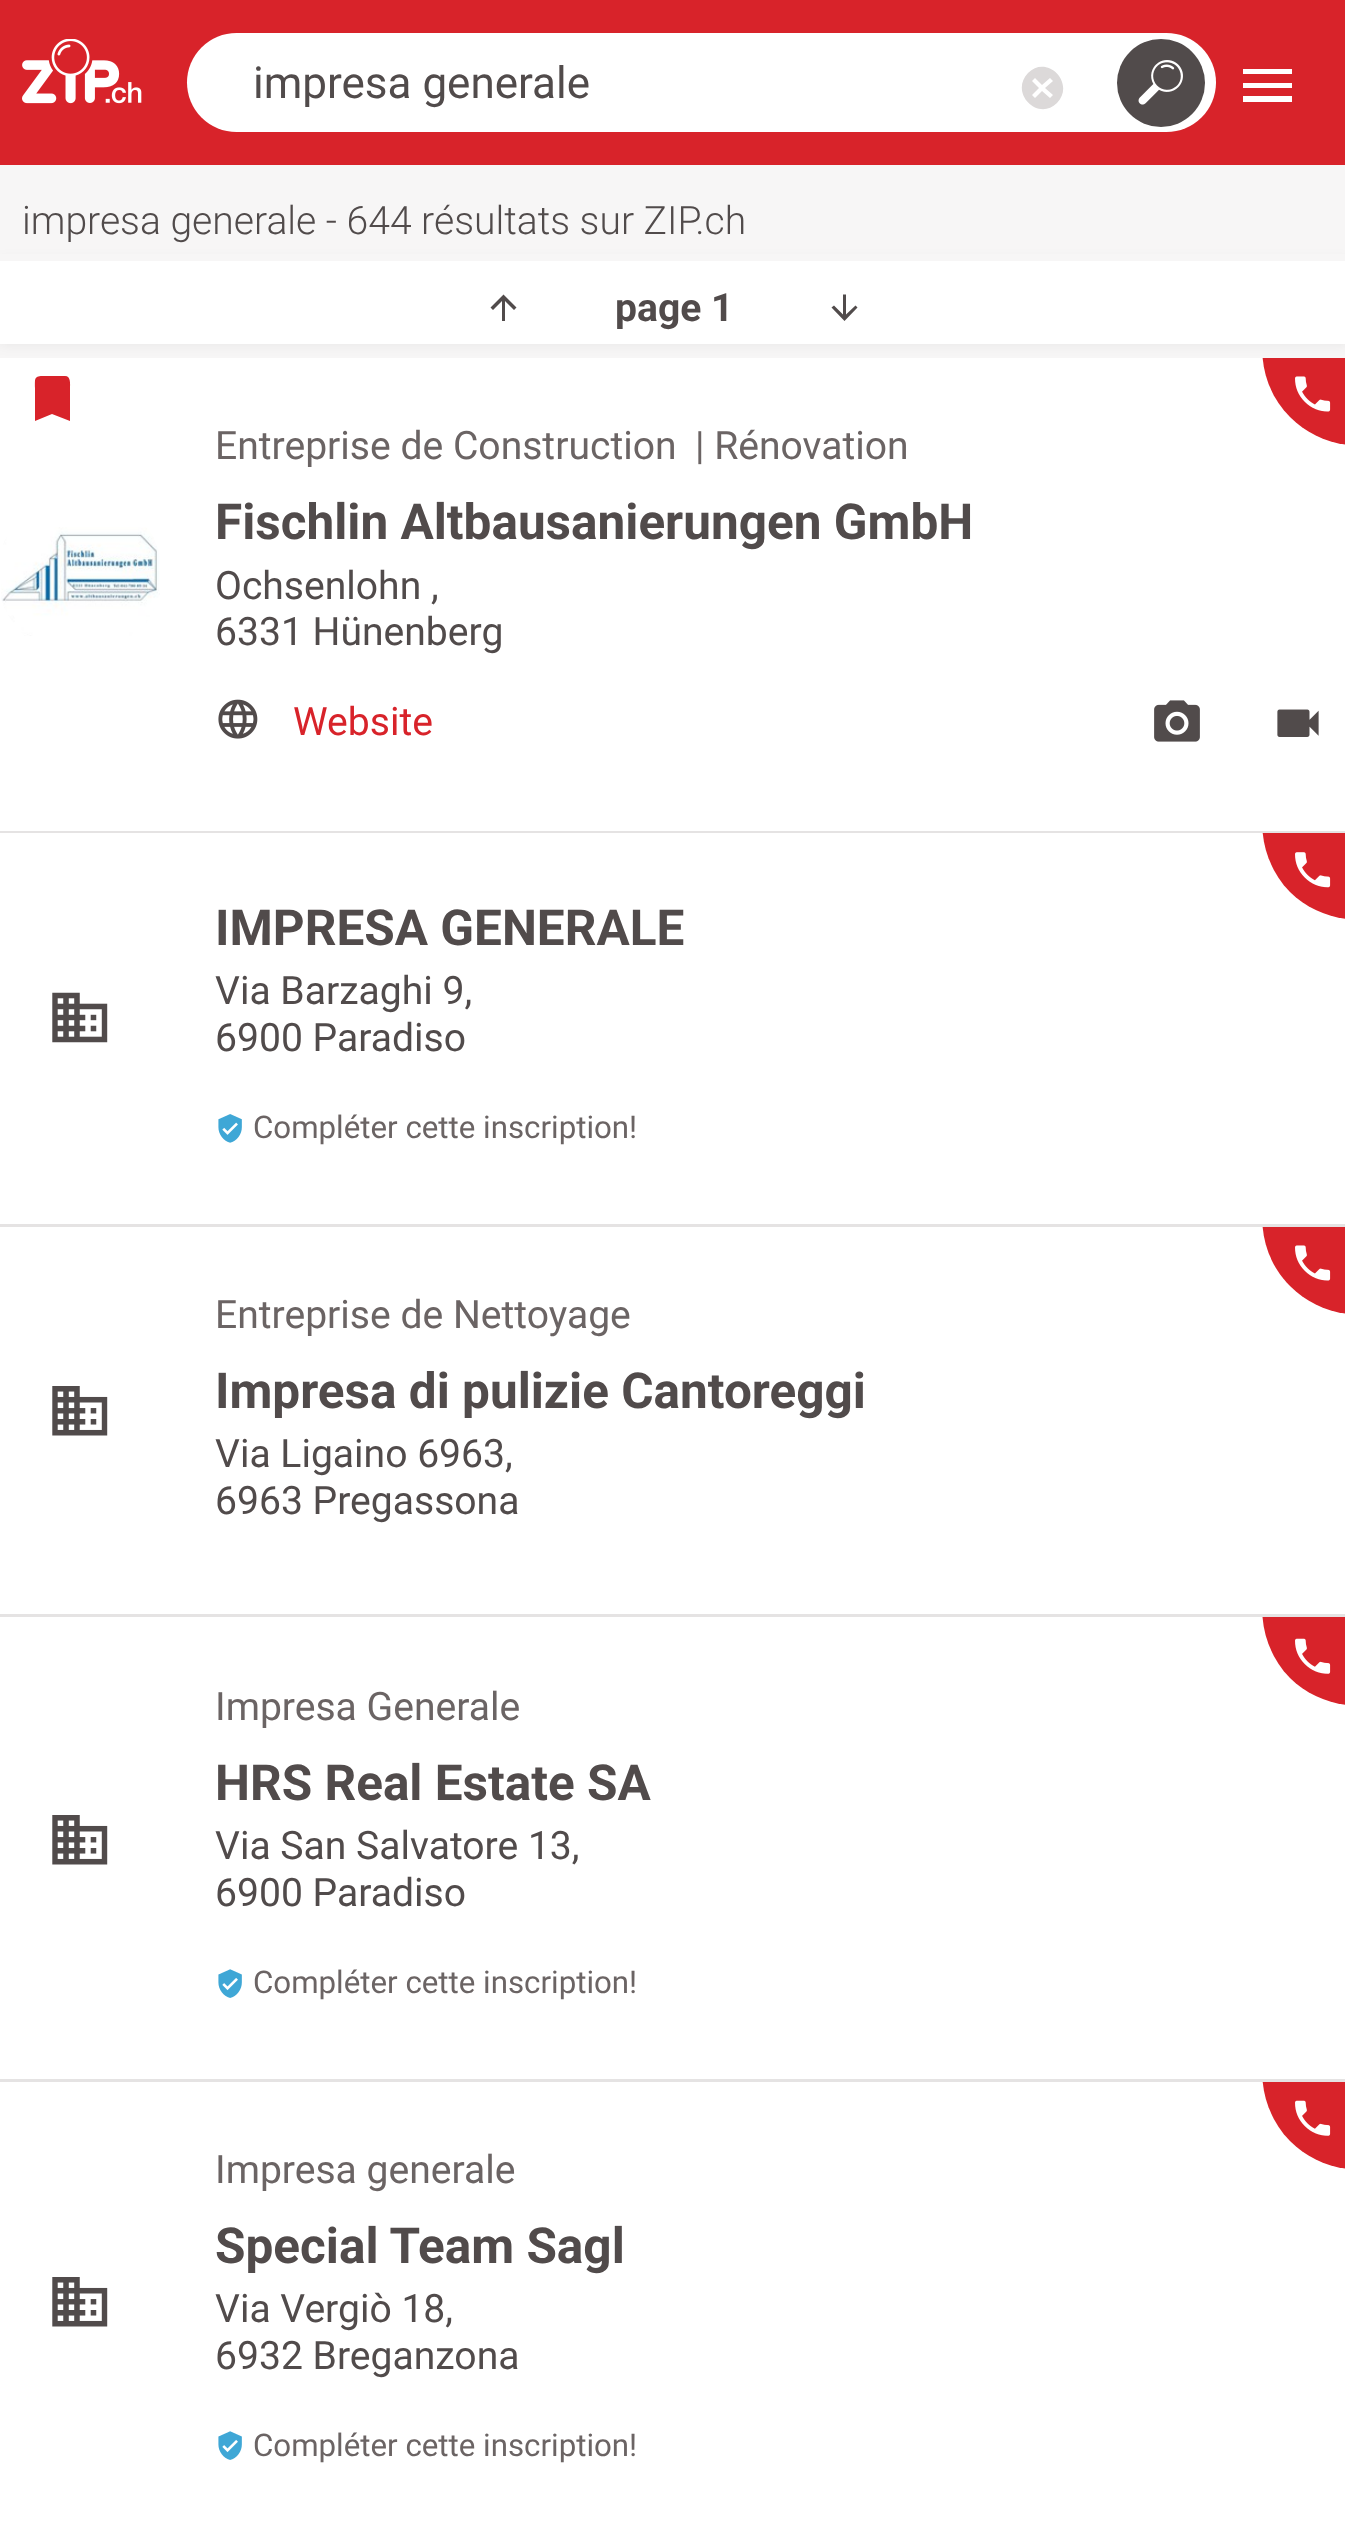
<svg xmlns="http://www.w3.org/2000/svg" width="1345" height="2529">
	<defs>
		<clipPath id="clip1"><rect x="0" y="358" width="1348" height="473" /></clipPath>
		<clipPath id="clip2"><rect x="0" y="833" width="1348" height="391" /></clipPath>
		<clipPath id="clip3"><rect x="0" y="1227" width="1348" height="387" /></clipPath>
		<clipPath id="clip4"><rect x="0" y="1617" width="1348" height="462" /></clipPath>
		<clipPath id="clip5"><rect x="0" y="2082" width="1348" height="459" /></clipPath>
	</defs>
	<rect width="100%" height="100%" fill="#F7F6F6" />
	<rect x="0" y="0" width="1345" height="165" fill="#D8232A" />
	<image x="22" y="39" width="120" height="65" href="assets/img1.png" />
	<rect x="187" y="33" width="1029" height="99" rx="49.5" fill="#FFFFFF" />
	<text x="253" y="98" font-family="Roboto" font-size="44" fill="#514B4B">impresa generale</text>
	<path d="M1053 95L1045 88L1053 81L1050 78L1042 85L1035 78L1032 81L1039 88L1032 95L1035 98L1042 91L1050 98ZM1028 73C1047 54 1076 83 1057 103C1038 122 1009 93 1028 73Z" fill="#DCD9D9" />
	<circle cx="1161" cy="83" r="44" fill="#514B4B" />
	<image x="1138" y="60" width="45" height="45" href="assets/img2.png" />
	<path d="M1243 69H1292V74H1243ZM1243 88V83H1292V88ZM1243 102V96H1292V102Z" fill="#FFFFFF" />
	<rect x="0" y="261" width="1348" height="83" fill="#000000" fill-opacity="0.07" filter="blur(7px)" />
	<rect x="0" y="254" width="1345" height="7" fill="#F7F6F6" />
	<text x="22" y="234" font-family="Roboto" font-size="39.1" font-weight="300" fill="#514B4B">impresa generale - 644 résultats sur ZIP.ch</text>
	<rect x="0" y="261" width="1345" height="83" fill="#FFFFFF" />
	<path d="M490.5 307.5L503.5 294.5L516.5 307.5L514 310L505 301V321H502V301L493 310Z" fill="#514B4B" />
	<text x="615" y="321" font-family="Roboto" font-size="39.1" font-weight="700" fill="#514B4B">page 1</text>
	<path d="M857.5 307.5L844.5 321L831.5 307.5L834 305.5L843 314.5V294.5H846V314.5L855.5 305.5Z" fill="#514B4B" />
	<rect x="0" y="358" width="1345" height="473" fill="#FFFFFF" />
	<rect x="0" y="831" width="1345" height="2" fill="#E5E3E3" />
	<path d="M65 376C71 376 70 384 70 388V421L52 414L35 421V388C35 378 34 376 44 376Z" fill="#D8232A" />
	<image x="1" y="527" width="159" height="109" href="assets/img3.png" />
	<g font-family="Roboto" font-size="39.1" fill="#6B6464">
		<text x="215" y="459">Entreprise de Construction</text>
		<text x="695" y="459">| Rénovation</text>
	</g>
	<g clip-path="url(#clip1)">
		<path d="M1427 281C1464 319 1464 380 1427 417C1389 455 1328 455 1290 417C1253 380 1253 319 1290 281C1328 244 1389 244 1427 281Z" fill="#D8232A" />
	</g>
	<image x="1295" y="376" width="36" height="36" href="assets/img4.png" />
	<text x="215" y="539" font-family="Roboto" font-size="49.5" font-weight="700" fill="#514B4B">Fischlin Altbausanierungen GmbH</text>
	<g font-family="Roboto" font-size="39.1" fill="#514B4B">
		<text x="215" y="599">Ochsenlohn ,</text>
		<text x="215" y="645">6331 Hünenberg</text>
	</g>
	<image x="218" y="699" width="40" height="40" href="assets/img5.png" />
	<text x="293" y="735" font-family="Roboto" font-size="39.1" fill="#D8232A">Website</text>
	<image x="1154" y="700" width="46" height="42" href="assets/img6.png" />
	<image x="1277" y="709" width="42" height="28" href="assets/img7.png" />
	<rect x="0" y="833" width="1345" height="391" fill="#FFFFFF" />
	<rect x="0" y="1224" width="1345" height="3" fill="#E5E3E3" />
	<image x="52" y="992" width="56" height="51" href="assets/img8.png" />
	<g clip-path="url(#clip2)">
		<path d="M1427 756C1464 793 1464 854 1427 892C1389 929 1328 929 1290 892C1253 854 1253 793 1290 756C1328 718 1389 718 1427 756Z" fill="#D8232A" />
	</g>
	<image x="1295" y="852" width="36" height="36" href="assets/img9.png" />
	<text x="215" y="945" font-family="Roboto" font-size="49.5" font-weight="700" fill="#514B4B">IMPRESA GENERALE</text>
	<g font-family="Roboto" font-size="39.1" fill="#514B4B">
		<text x="215" y="1004">Via Barzaghi 9,</text>
		<text x="215" y="1051">6900 Paradiso</text>
	</g>
	<image x="218" y="1114" width="24" height="29" href="assets/img10.png" />
	<text x="253" y="1138" font-family="Roboto" font-size="31.25" fill="#6B6464">Compléter cette inscription!</text>
	<rect x="0" y="1227" width="1345" height="387" fill="#FFFFFF" />
	<rect x="0" y="1614" width="1345" height="3" fill="#E5E3E3" />
	<image x="52" y="1386" width="56" height="50" href="assets/img11.png" />
	<text x="215" y="1328" font-family="Roboto" font-size="39.1" fill="#6B6464">Entreprise de Nettoyage</text>
	<g clip-path="url(#clip3)">
		<path d="M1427 1150C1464 1188 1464 1249 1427 1286C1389 1324 1328 1324 1290 1286C1253 1249 1253 1188 1290 1150C1328 1113 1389 1113 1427 1150Z" fill="#D8232A" />
	</g>
	<image x="1295" y="1245" width="36" height="36" href="assets/img4.png" />
	<text x="215" y="1408" font-family="Roboto" font-size="49.5" font-weight="700" fill="#514B4B">Impresa di pulizie Cantoreggi</text>
	<g font-family="Roboto" font-size="39.1" fill="#514B4B">
		<text x="215" y="1467">Via Ligaino 6963,</text>
		<text x="215" y="1514">6963 Pregassona</text>
	</g>
	<rect x="0" y="1617" width="1345" height="462" fill="#FFFFFF" />
	<rect x="0" y="2079" width="1345" height="3" fill="#E5E3E3" />
	<image x="52" y="1815" width="56" height="50" href="assets/img11.png" />
	<g clip-path="url(#clip4)">
		<path d="M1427 1542C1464 1579 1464 1640 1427 1678C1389 1715 1328 1715 1290 1678C1253 1640 1253 1579 1290 1542C1328 1504 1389 1504 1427 1542Z" fill="#D8232A" />
	</g>
	<image x="1295" y="1638" width="36" height="36" href="assets/img12.png" />
	<text x="215" y="1720" font-family="Roboto" font-size="39.1" fill="#6B6464">Impresa Generale</text>
	<text x="215" y="1800" font-family="Roboto" font-size="49.5" font-weight="700" fill="#514B4B">HRS Real Estate SA</text>
	<g font-family="Roboto" font-size="39.1" fill="#514B4B">
		<text x="215" y="1859">Via San Salvatore 13,</text>
		<text x="215" y="1906">6900 Paradiso</text>
	</g>
	<image x="218" y="1969" width="24" height="29" href="assets/img13.png" />
	<text x="253" y="1993" font-family="Roboto" font-size="31.25" fill="#6B6464">Compléter cette inscription!</text>
	<rect x="0" y="2082" width="1345" height="447" fill="#FFFFFF" />
	<image x="52" y="2277" width="56" height="50" href="assets/img11.png" />
	<text x="215" y="2183" font-family="Roboto" font-size="39.1" fill="#6B6464">Impresa generale</text>
	<g clip-path="url(#clip5)">
		<path d="M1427 2005C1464 2042 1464 2103 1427 2141C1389 2179 1328 2179 1290 2141C1253 2103 1253 2042 1290 2005C1328 1967 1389 1967 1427 2005Z" fill="#D8232A" />
	</g>
	<image x="1295" y="2100" width="36" height="36" href="assets/img12.png" />
	<text x="215" y="2263" font-family="Roboto" font-size="49.5" font-weight="700" fill="#514B4B">Special Team Sagl</text>
	<g font-family="Roboto" font-size="39.1" fill="#514B4B">
		<text x="215" y="2322">Via Vergiò 18,</text>
		<text x="215" y="2369">6932 Breganzona</text>
	</g>
	<image x="218" y="2431" width="24" height="29" href="assets/img13.png" />
	<text x="253" y="2456" font-family="Roboto" font-size="31.25" fill="#6B6464">Compléter cette inscription!</text>
</svg>
